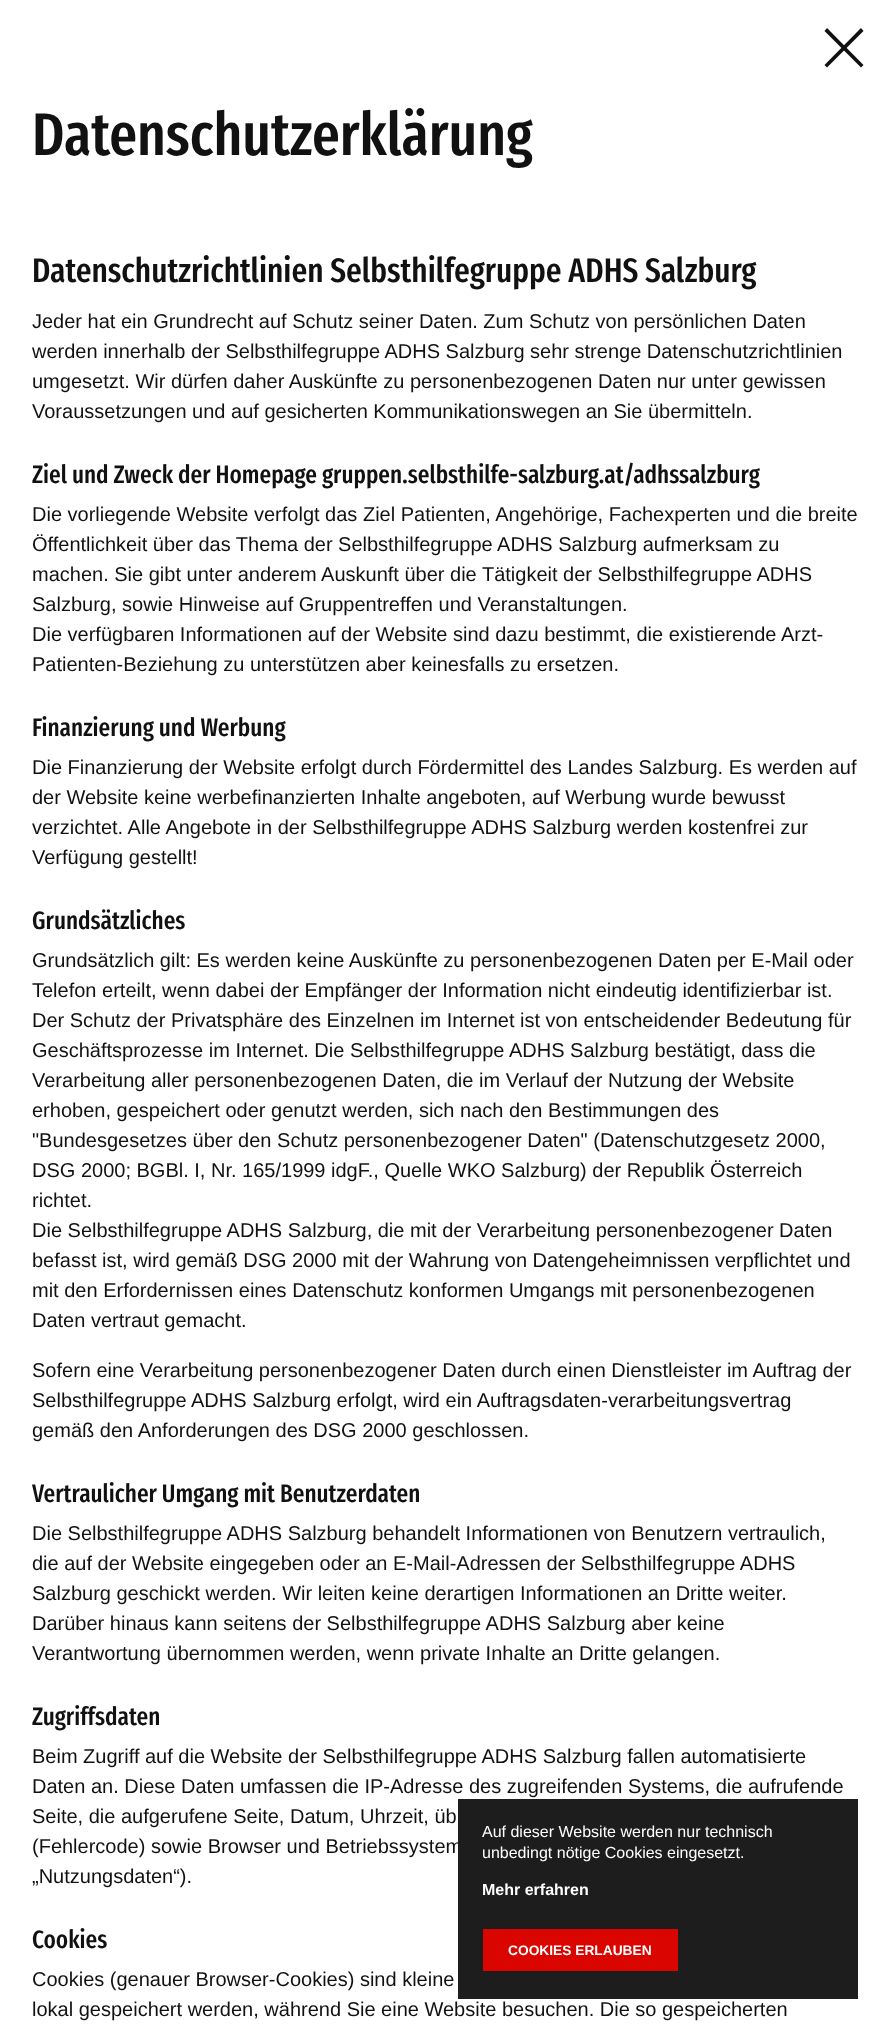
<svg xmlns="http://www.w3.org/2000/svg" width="889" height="2031">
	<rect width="100%" height="100%" fill="#FFFFFF" />
	<path d="M827 28L863.5 65L861 67.5L824.5 31Z" fill="#111111" />
	<path d="M824.5 65L861 28L863.5 31L827 67.5Z" fill="#111111" />
	<text x="32" y="155" font-family="Fira Sans Extra Condensed" font-size="60" font-weight="500" fill="#111111">Datenschutzerklärung</text>
	<text x="32" y="282" font-family="Fira Sans Extra Condensed" font-size="34" font-weight="500" fill="#111111">Datenschutzrichtlinien Selbsthilfegruppe ADHS Salzburg</text>
	<g font-family="Liberation Sans" font-size="20" fill="#111111">
		<text x="32" y="328">Jeder hat ein Grundrecht auf Schutz seiner Daten. Zum Schutz von persönlichen Daten</text>
		<text x="32" y="358">werden innerhalb der Selbsthilfegruppe ADHS Salzburg sehr strenge Datenschutzrichtlinien</text>
		<text x="32" y="388">umgesetzt. Wir dürfen daher Auskünfte zu personenbezogenen Daten nur unter gewissen</text>
		<text x="32" y="418">Voraussetzungen und auf gesicherten Kommunikationswegen an Sie übermitteln.</text>
	</g>
	<text x="32" y="483" font-family="Fira Sans Extra Condensed" font-size="25.2" font-weight="500" fill="#111111">Ziel und Zweck der Homepage gruppen.selbsthilfe-salzburg.at/adhssalzburg</text>
	<g font-family="Liberation Sans" font-size="20" fill="#111111">
		<text x="32" y="521">Die vorliegende Website verfolgt das Ziel Patienten, Angehörige, Fachexperten und die breite</text>
		<text x="32" y="551">Öffentlichkeit über das Thema der Selbsthilfegruppe ADHS Salzburg aufmerksam zu</text>
		<text x="32" y="581">machen. Sie gibt unter anderem Auskunft über die Tätigkeit der Selbsthilfegruppe ADHS</text>
		<text x="32" y="611">Salzburg, sowie Hinweise auf Gruppentreffen und Veranstaltungen.</text>
		<text x="32" y="641">Die verfügbaren Informationen auf der Website sind dazu bestimmt, die existierende Arzt-</text>
		<text x="32" y="671">Patienten-Beziehung zu unterstützen aber keinesfalls zu ersetzen.</text>
	</g>
	<text x="32" y="736" font-family="Fira Sans Extra Condensed" font-size="25.2" font-weight="500" fill="#111111">Finanzierung und Werbung</text>
	<g font-family="Liberation Sans" font-size="20" fill="#111111">
		<text x="32" y="774">Die Finanzierung der Website erfolgt durch Fördermittel des Landes Salzburg. Es werden auf</text>
		<text x="32" y="804">der Website keine werbefinanzierten Inhalte angeboten, auf Werbung wurde bewusst</text>
		<text x="32" y="834">verzichtet. Alle Angebote in der Selbsthilfegruppe ADHS Salzburg werden kostenfrei zur</text>
		<text x="32" y="864">Verfügung gestellt!</text>
	</g>
	<text x="32" y="929" font-family="Fira Sans Extra Condensed" font-size="25.2" font-weight="500" fill="#111111">Grundsätzliches</text>
	<g font-family="Liberation Sans" font-size="20" fill="#111111">
		<text x="32" y="967">Grundsätzlich gilt: Es werden keine Auskünfte zu personenbezogenen Daten per E-Mail oder</text>
		<text x="32" y="997">Telefon erteilt, wenn dabei der Empfänger der Information nicht eindeutig identifizierbar ist.</text>
		<text x="32" y="1027">Der Schutz der Privatsphäre des Einzelnen im Internet ist von entscheidender Bedeutung für</text>
		<text x="32" y="1057">Geschäftsprozesse im Internet. Die Selbsthilfegruppe ADHS Salzburg bestätigt, dass die</text>
		<text x="32" y="1087">Verarbeitung aller personenbezogenen Daten, die im Verlauf der Nutzung der Website</text>
		<text x="32" y="1117">erhoben, gespeichert oder genutzt werden, sich nach den Bestimmungen des</text>
		<text x="32" y="1147">"Bundesgesetzes über den Schutz personenbezogener Daten" (Datenschutzgesetz 2000,</text>
		<text x="32" y="1177">DSG 2000; BGBl. I, Nr. 165/1999 idgF., Quelle WKO Salzburg) der Republik Österreich</text>
		<text x="32" y="1207">richtet.</text>
		<text x="32" y="1237">Die Selbsthilfegruppe ADHS Salzburg, die mit der Verarbeitung personenbezogener Daten</text>
		<text x="32" y="1267">befasst ist, wird gemäß DSG 2000 mit der Wahrung von Datengeheimnissen verpflichtet und</text>
		<text x="32" y="1297">mit den Erfordernissen eines Datenschutz konformen Umgangs mit personenbezogenen</text>
		<text x="32" y="1327">Daten vertraut gemacht.</text>
		<text x="32" y="1377">Sofern eine Verarbeitung personenbezogener Daten durch einen Dienstleister im Auftrag der</text>
		<text x="32" y="1407">Selbsthilfegruppe ADHS Salzburg erfolgt, wird ein Auftragsdaten-verarbeitungsvertrag</text>
		<text x="32" y="1437">gemäß den Anforderungen des DSG 2000 geschlossen.</text>
	</g>
	<text x="32" y="1502" font-family="Fira Sans Extra Condensed" font-size="25.2" font-weight="500" fill="#111111">Vertraulicher Umgang mit Benutzerdaten</text>
	<g font-family="Liberation Sans" font-size="20" fill="#111111">
		<text x="32" y="1540">Die Selbsthilfegruppe ADHS Salzburg behandelt Informationen von Benutzern vertraulich,</text>
		<text x="32" y="1570">die auf der Website eingegeben oder an E-Mail-Adressen der Selbsthilfegruppe ADHS</text>
		<text x="32" y="1600">Salzburg geschickt werden. Wir leiten keine derartigen Informationen an Dritte weiter.</text>
		<text x="32" y="1630">Darüber hinaus kann seitens der Selbsthilfegruppe ADHS Salzburg aber keine</text>
		<text x="32" y="1660">Verantwortung übernommen werden, wenn private Inhalte an Dritte gelangen.</text>
	</g>
	<text x="32" y="1725" font-family="Fira Sans Extra Condensed" font-size="25.2" font-weight="500" fill="#111111">Zugriffsdaten</text>
	<g font-family="Liberation Sans" font-size="20" fill="#111111">
		<text x="32" y="1763">Beim Zugriff auf die Website der Selbsthilfegruppe ADHS Salzburg fallen automatisierte</text>
		<text x="32" y="1793">Daten an. Diese Daten umfassen die IP-Adresse des zugreifenden Systems, die aufrufende</text>
		<text x="32" y="1823">Seite, die aufgerufene Seite, Datum, Uhrzeit, üb</text>
		<text x="32" y="1853">(Fehlercode) sowie Browser und Betriebssystem</text>
		<text x="32" y="1883">„Nutzungsdaten“).</text>
	</g>
	<text x="32" y="1948" font-family="Fira Sans Extra Condensed" font-size="25.2" font-weight="500" fill="#111111">Cookies</text>
	<g font-family="Liberation Sans" font-size="20" fill="#111111">
		<text x="32" y="1986">Cookies (genauer Browser-Cookies) sind kleine</text>
		<text x="32" y="2016">lokal gespeichert werden, während Sie eine Website besuchen. Die so gespeicherten</text>
	</g>
	<rect x="458" y="1799" width="400" height="200" fill="#1D1D1D" />
	<g font-family="Liberation Sans" font-size="16" fill="#FFFFFF">
		<text x="482" y="1837">Auf dieser Website werden nur technisch</text>
		<text x="482" y="1858">unbedingt nötige Cookies eingesetzt.</text>
	</g>
	<text x="482" y="1895" font-family="Liberation Sans" font-size="16" font-weight="700" fill="#FFFFFF">Mehr erfahren</text>
	<rect x="483" y="1929" width="195" height="42" fill="#DB0500" />
	<text x="508" y="1955" font-family="Liberation Sans" font-size="13.75" font-weight="700" fill="#FFFFFF">COOKIES ERLAUBEN</text>
</svg>
